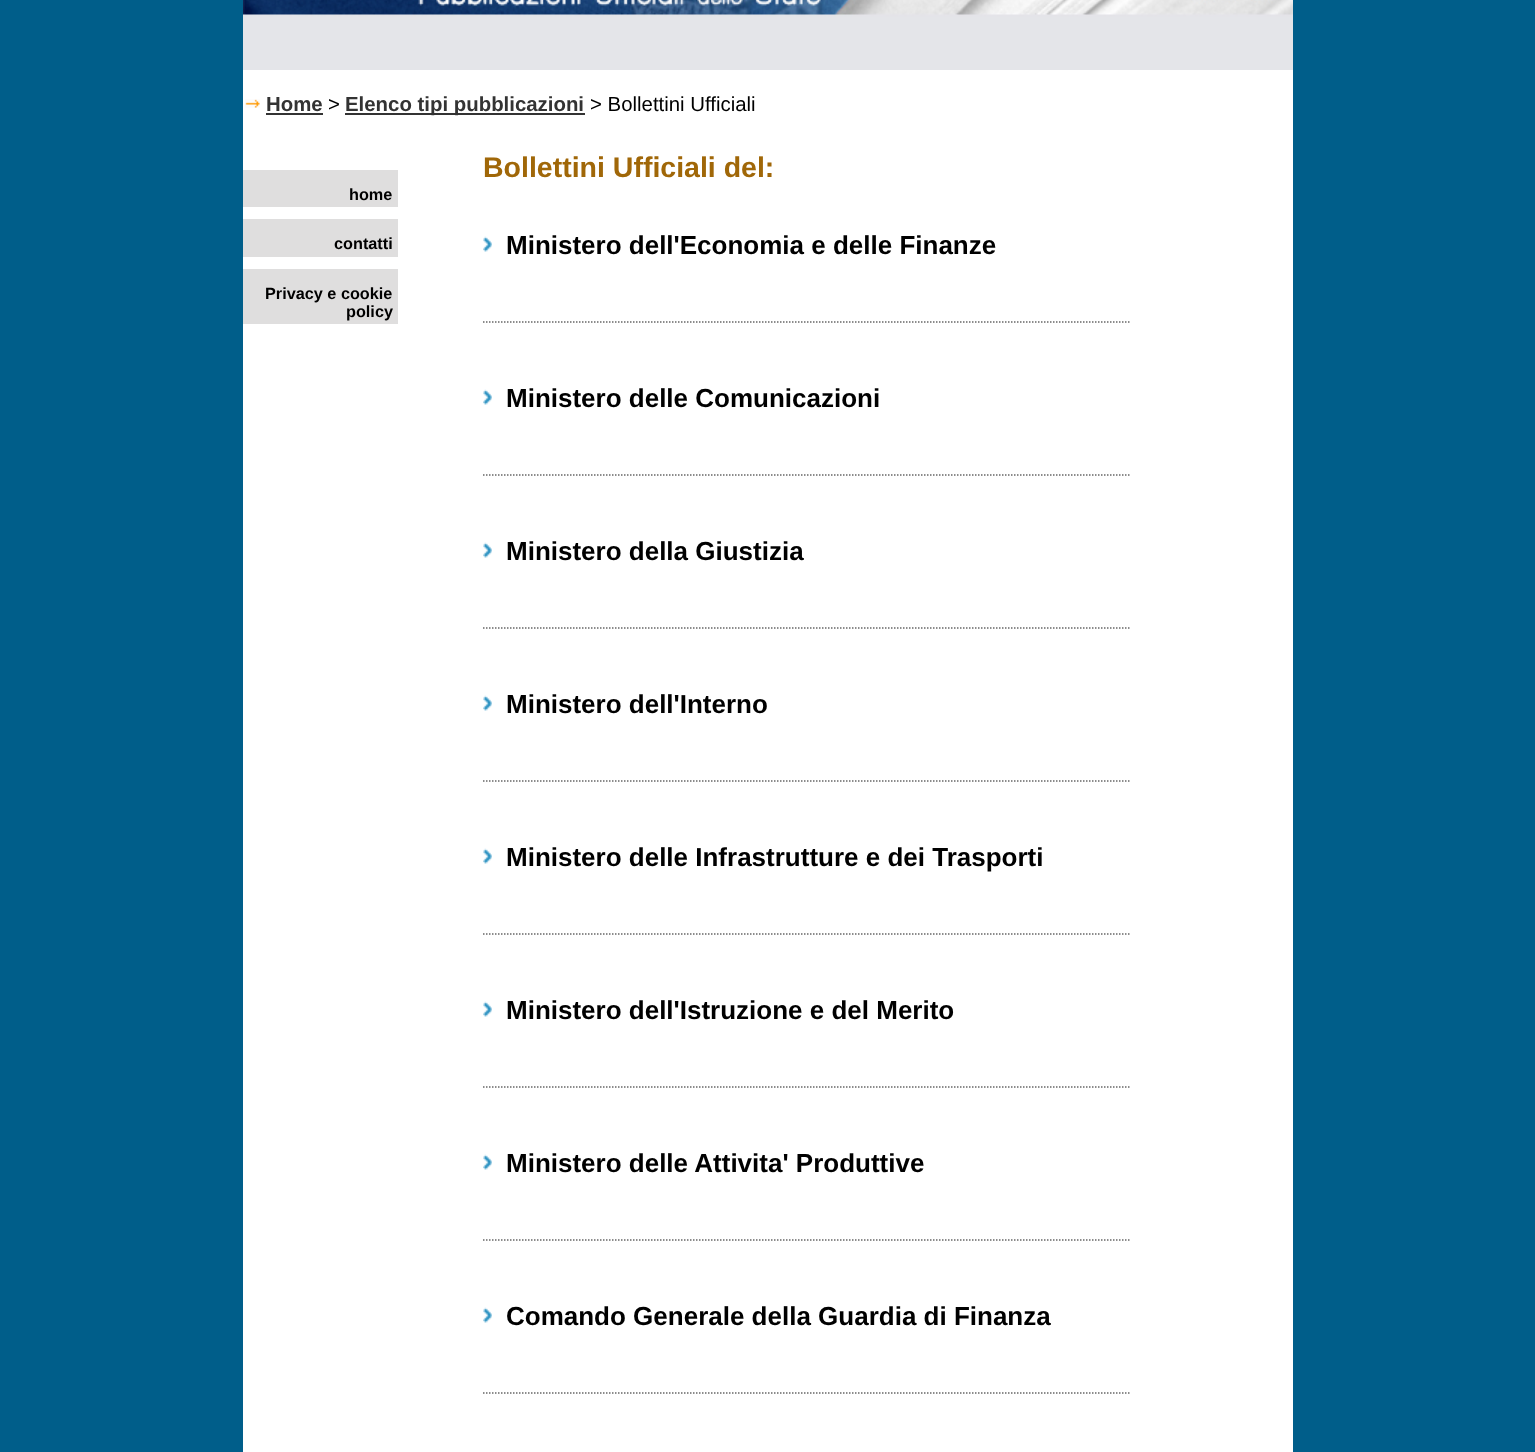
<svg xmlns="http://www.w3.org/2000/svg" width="1535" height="1452">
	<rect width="100%" height="100%" fill="#005E8A" />
	<rect x="243" y="70" width="1050" height="1382" fill="#FFFFFF" />
	<image x="243" y="0" width="1050" height="70" href="assets/img1.png" />
	<image x="245" y="99" width="15" height="9" href="assets/img2.png" />
	<text x="266" y="111" font-family="Liberation Sans" font-size="20.4" font-weight="700" fill="#333333">Home</text>
	<rect x="266" y="113" width="57" height="2" fill="#333333" />
	<text x="328" y="111" font-family="Liberation Sans" font-size="20.4" fill="#000000">&gt;</text>
	<rect x="345" y="113" width="240" height="2" fill="#333333" />
	<text x="345" y="111" font-family="Liberation Sans" font-size="20.4" font-weight="700" fill="#333333">Elenco tipi pubblicazioni</text>
	<text x="590" y="111" font-family="Liberation Sans" font-size="20.4" fill="#000000">&gt; Bollettini Ufficiali</text>
	<text x="483" y="177" font-family="Liberation Sans" font-size="28.5" font-weight="700" fill="#A06708">Bollettini Ufficiali del:</text>
	<rect x="243" y="170" width="155" height="37" fill="#DFDEDE" />
	<text x="349" y="200" font-family="Liberation Sans" font-size="16.25" font-weight="700" fill="#000000">home</text>
	<rect x="243" y="219" width="155" height="38" fill="#DFDEDE" />
	<text x="334" y="249" font-family="Liberation Sans" font-size="16.25" font-weight="700" fill="#000000">contatti</text>
	<rect x="243" y="269" width="155" height="55" fill="#DFDEDE" />
	<g font-family="Liberation Sans" font-size="16.25" font-weight="700" fill="#000000">
		<text x="265" y="299">Privacy e cookie</text>
		<text x="346" y="317">policy</text>
	</g>
	<image x="483" y="236" width="9" height="16" href="assets/img3.png" />
	<text x="506" y="254" font-family="Liberation Sans" font-size="26" font-weight="700" fill="#000000">Ministero dell'Economia e delle Finanze</text>
	<path d="M483 322H1131" fill="none" stroke="#676767" stroke-width="1.5" stroke-dasharray="1.5 1.5" />
	<image x="483" y="389" width="9" height="16" href="assets/img3.png" />
	<text x="506" y="407" font-family="Liberation Sans" font-size="26" font-weight="700" fill="#000000">Ministero delle Comunicazioni</text>
	<path d="M483 475H1131" fill="none" stroke="#676767" stroke-width="1.5" stroke-dasharray="1.5 1.5" />
	<image x="483" y="542" width="9" height="16" href="assets/img3.png" />
	<text x="506" y="560" font-family="Liberation Sans" font-size="26" font-weight="700" fill="#000000">Ministero della Giustizia</text>
	<path d="M483 628H1131" fill="none" stroke="#676767" stroke-width="1.5" stroke-dasharray="1.5 1.5" />
	<image x="483" y="695" width="9" height="16" href="assets/img3.png" />
	<text x="506" y="713" font-family="Liberation Sans" font-size="26" font-weight="700" fill="#000000">Ministero dell'Interno</text>
	<path d="M483 781H1131" fill="none" stroke="#676767" stroke-width="1.5" stroke-dasharray="1.5 1.5" />
	<image x="483" y="848" width="9" height="16" href="assets/img3.png" />
	<text x="506" y="866" font-family="Liberation Sans" font-size="26" font-weight="700" fill="#000000">Ministero delle Infrastrutture e dei Trasporti</text>
	<path d="M483 934H1131" fill="none" stroke="#676767" stroke-width="1.5" stroke-dasharray="1.5 1.5" />
	<image x="483" y="1001" width="9" height="16" href="assets/img3.png" />
	<text x="506" y="1019" font-family="Liberation Sans" font-size="26" font-weight="700" fill="#000000">Ministero dell'Istruzione e del Merito</text>
	<path d="M483 1087H1131" fill="none" stroke="#676767" stroke-width="1.5" stroke-dasharray="1.5 1.5" />
	<image x="483" y="1154" width="9" height="16" href="assets/img3.png" />
	<text x="506" y="1172" font-family="Liberation Sans" font-size="26" font-weight="700" fill="#000000">Ministero delle Attivita' Produttive</text>
	<path d="M483 1240H1131" fill="none" stroke="#676767" stroke-width="1.5" stroke-dasharray="1.5 1.5" />
	<image x="483" y="1307" width="9" height="16" href="assets/img3.png" />
	<text x="506" y="1325" font-family="Liberation Sans" font-size="26" font-weight="700" fill="#000000">Comando Generale della Guardia di Finanza</text>
	<path d="M483 1393H1131" fill="none" stroke="#676767" stroke-width="1.5" stroke-dasharray="1.5 1.5" />
</svg>
